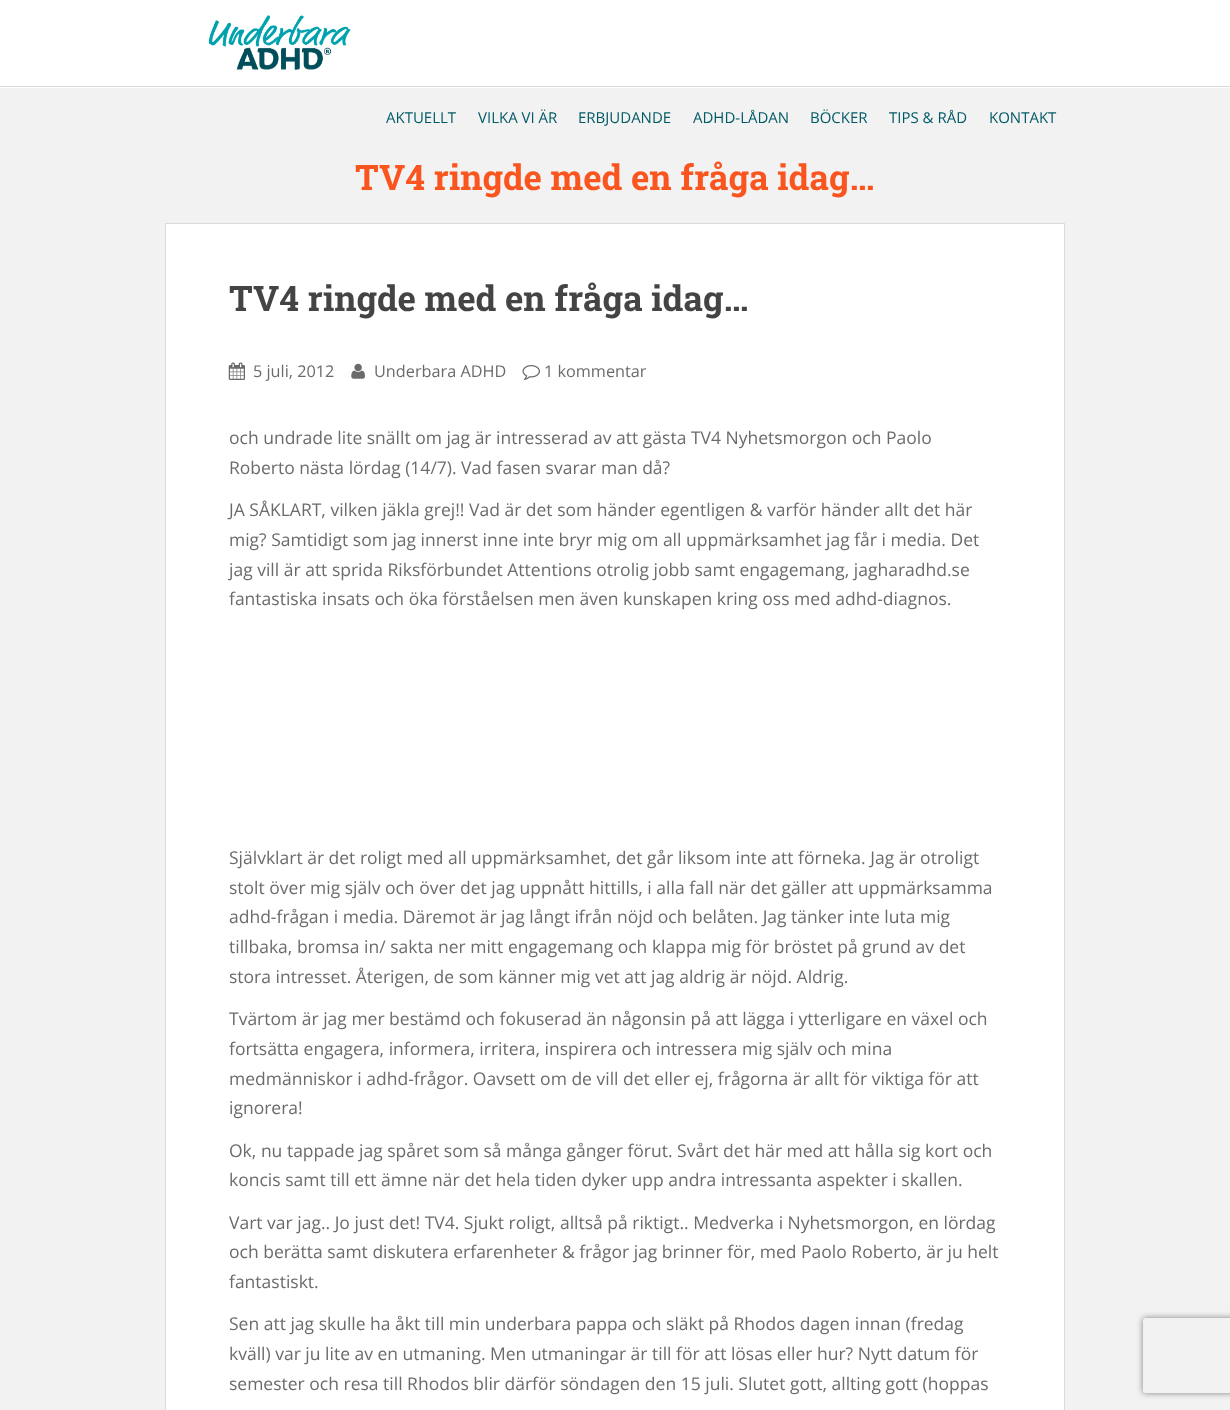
<svg xmlns="http://www.w3.org/2000/svg" width="1230" height="1410">
	<defs>
		<clipPath id="clip1"><path d="M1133 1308H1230V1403H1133ZM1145.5 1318H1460.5C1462 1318 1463 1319 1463 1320.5V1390.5C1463 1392 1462 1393 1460.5 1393H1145.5C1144 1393 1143 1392 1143 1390.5V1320.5C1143 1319 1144 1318 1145.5 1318Z" clip-rule="evenodd" /></clipPath>
	</defs>
	<rect width="100%" height="100%" fill="#F2F2F2" />
	<rect x="0" y="0" width="1230" height="88" fill="#FFFFFF" />
	<rect x="0" y="86" width="1230" height="1" fill="#DADADA" />
	<image x="208" y="15" width="143" height="55" href="assets/img1.png" />
	<g font-family="Open Sans" font-size="15" fill="#005A65">
		<text x="386" y="123">AKTUELLT</text>
		<text x="478" y="123">VILKA VI ÄR</text>
		<text x="578" y="123">ERBJUDANDE</text>
		<text x="693" y="123">ADHD-LÅDAN</text>
		<text x="810" y="123">BÖCKER</text>
		<text x="889" y="123">TIPS &amp; RÅD</text>
		<text x="989" y="123">KONTAKT</text>
	</g>
	<text x="355" y="190" font-family="Roboto Slab" font-size="35" font-weight="700" fill="#FA551F">TV4 ringde med en fråga idag…</text>
	<rect x="165.5" y="223.5" width="899" height="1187" fill="#FFFFFF" stroke="#DADADA" />
	<text x="229" y="311" font-family="Roboto Slab" font-size="35" font-weight="700" fill="#444444">TV4 ringde med en fråga idag…</text>
	<image x="228" y="362" width="17" height="18" href="assets/img2.png" />
	<text x="253" y="377" font-family="Open Sans" font-size="16.25" fill="#6B6B6B">5 juli, 2012</text>
	<image x="351" y="363" width="14" height="16" href="assets/img3.png" />
	<text x="374" y="377" font-family="Open Sans" font-size="16.25" fill="#6B6B6B">Underbara ADHD</text>
	<image x="522" y="365" width="18" height="15" href="assets/img4.png" />
	<text x="544" y="377" font-family="Open Sans" font-size="16.25" fill="#6B6B6B">1 kommentar</text>
	<g font-family="Open Sans" font-size="17.5" fill="#6B6B6B">
		<text x="229" y="444">och undrade lite snällt om jag är intresserad av att gästa TV4 Nyhetsmorgon och Paolo</text>
		<text x="229" y="474">Roberto nästa lördag (14/7). Vad fasen svarar man då?</text>
		<text x="229" y="516">JA SÅKLART, vilken jäkla grej!! Vad är det som händer egentligen &amp; varför händer allt det här</text>
		<text x="229" y="546">mig? Samtidigt som jag innerst inne inte bryr mig om all uppmärksamhet jag får i media. Det</text>
		<text x="229" y="576">jag vill är att sprida Riksförbundet Attentions otrolig jobb samt engagemang, jagharadhd.se</text>
		<text x="229" y="605">fantastiska insats och öka förståelsen men även kunskapen kring oss med adhd-diagnos.</text>
		<text x="229" y="864">Självklart är det roligt med all uppmärksamhet, det går liksom inte att förneka. Jag är otroligt</text>
		<text x="229" y="894">stolt över mig själv och över det jag uppnått hittills, i alla fall när det gäller att uppmärksamma</text>
		<text x="229" y="923">adhd-frågan i media. Däremot är jag långt ifrån nöjd och belåten. Jag tänker inte luta mig</text>
		<text x="229" y="953">tillbaka, bromsa in/ sakta ner mitt engagemang och klappa mig för bröstet på grund av det</text>
		<text x="229" y="983">stora intresset. Återigen, de som känner mig vet att jag aldrig är nöjd. Aldrig.</text>
		<text x="229" y="1025">Tvärtom är jag mer bestämd och fokuserad än någonsin på att lägga i ytterligare en växel och</text>
		<text x="229" y="1055">fortsätta engagera, informera, irritera, inspirera och intressera mig själv och mina</text>
		<text x="229" y="1085">medmänniskor i adhd-frågor. Oavsett om de vill det eller ej, frågorna är allt för viktiga för att</text>
		<text x="229" y="1114">ignorera!</text>
		<text x="229" y="1157">Ok, nu tappade jag spåret som så många gånger förut. Svårt det här med att hålla sig kort och</text>
		<text x="229" y="1186">koncis samt till ett ämne när det hela tiden dyker upp andra intressanta aspekter i skallen.</text>
		<text x="229" y="1229">Vart var jag.. Jo just det! TV4. Sjukt roligt, alltså på riktigt.. Medverka i Nyhetsmorgon, en lördag</text>
		<text x="229" y="1258">och berätta samt diskutera erfarenheter &amp; frågor jag brinner för, med Paolo Roberto, är ju helt</text>
		<text x="229" y="1288">fantastiskt.</text>
		<text x="229" y="1330">Sen att jag skulle ha åkt till min underbara pappa och släkt på Rhodos dagen innan (fredag</text>
		<text x="229" y="1360">kväll) var ju lite av en utmaning. Men utmaningar är till för att lösas eller hur? Nytt datum för</text>
		<text x="229" y="1390">semester och resa till Rhodos blir därför söndagen den 15 juli. Slutet gott, allting gott (hoppas</text>
	</g>
	<g clip-path="url(#clip1)">
		<rect x="1143" y="1318" width="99" height="75" rx="2.5" fill="#808080" filter="blur(3px)" />
	</g>
</svg>
